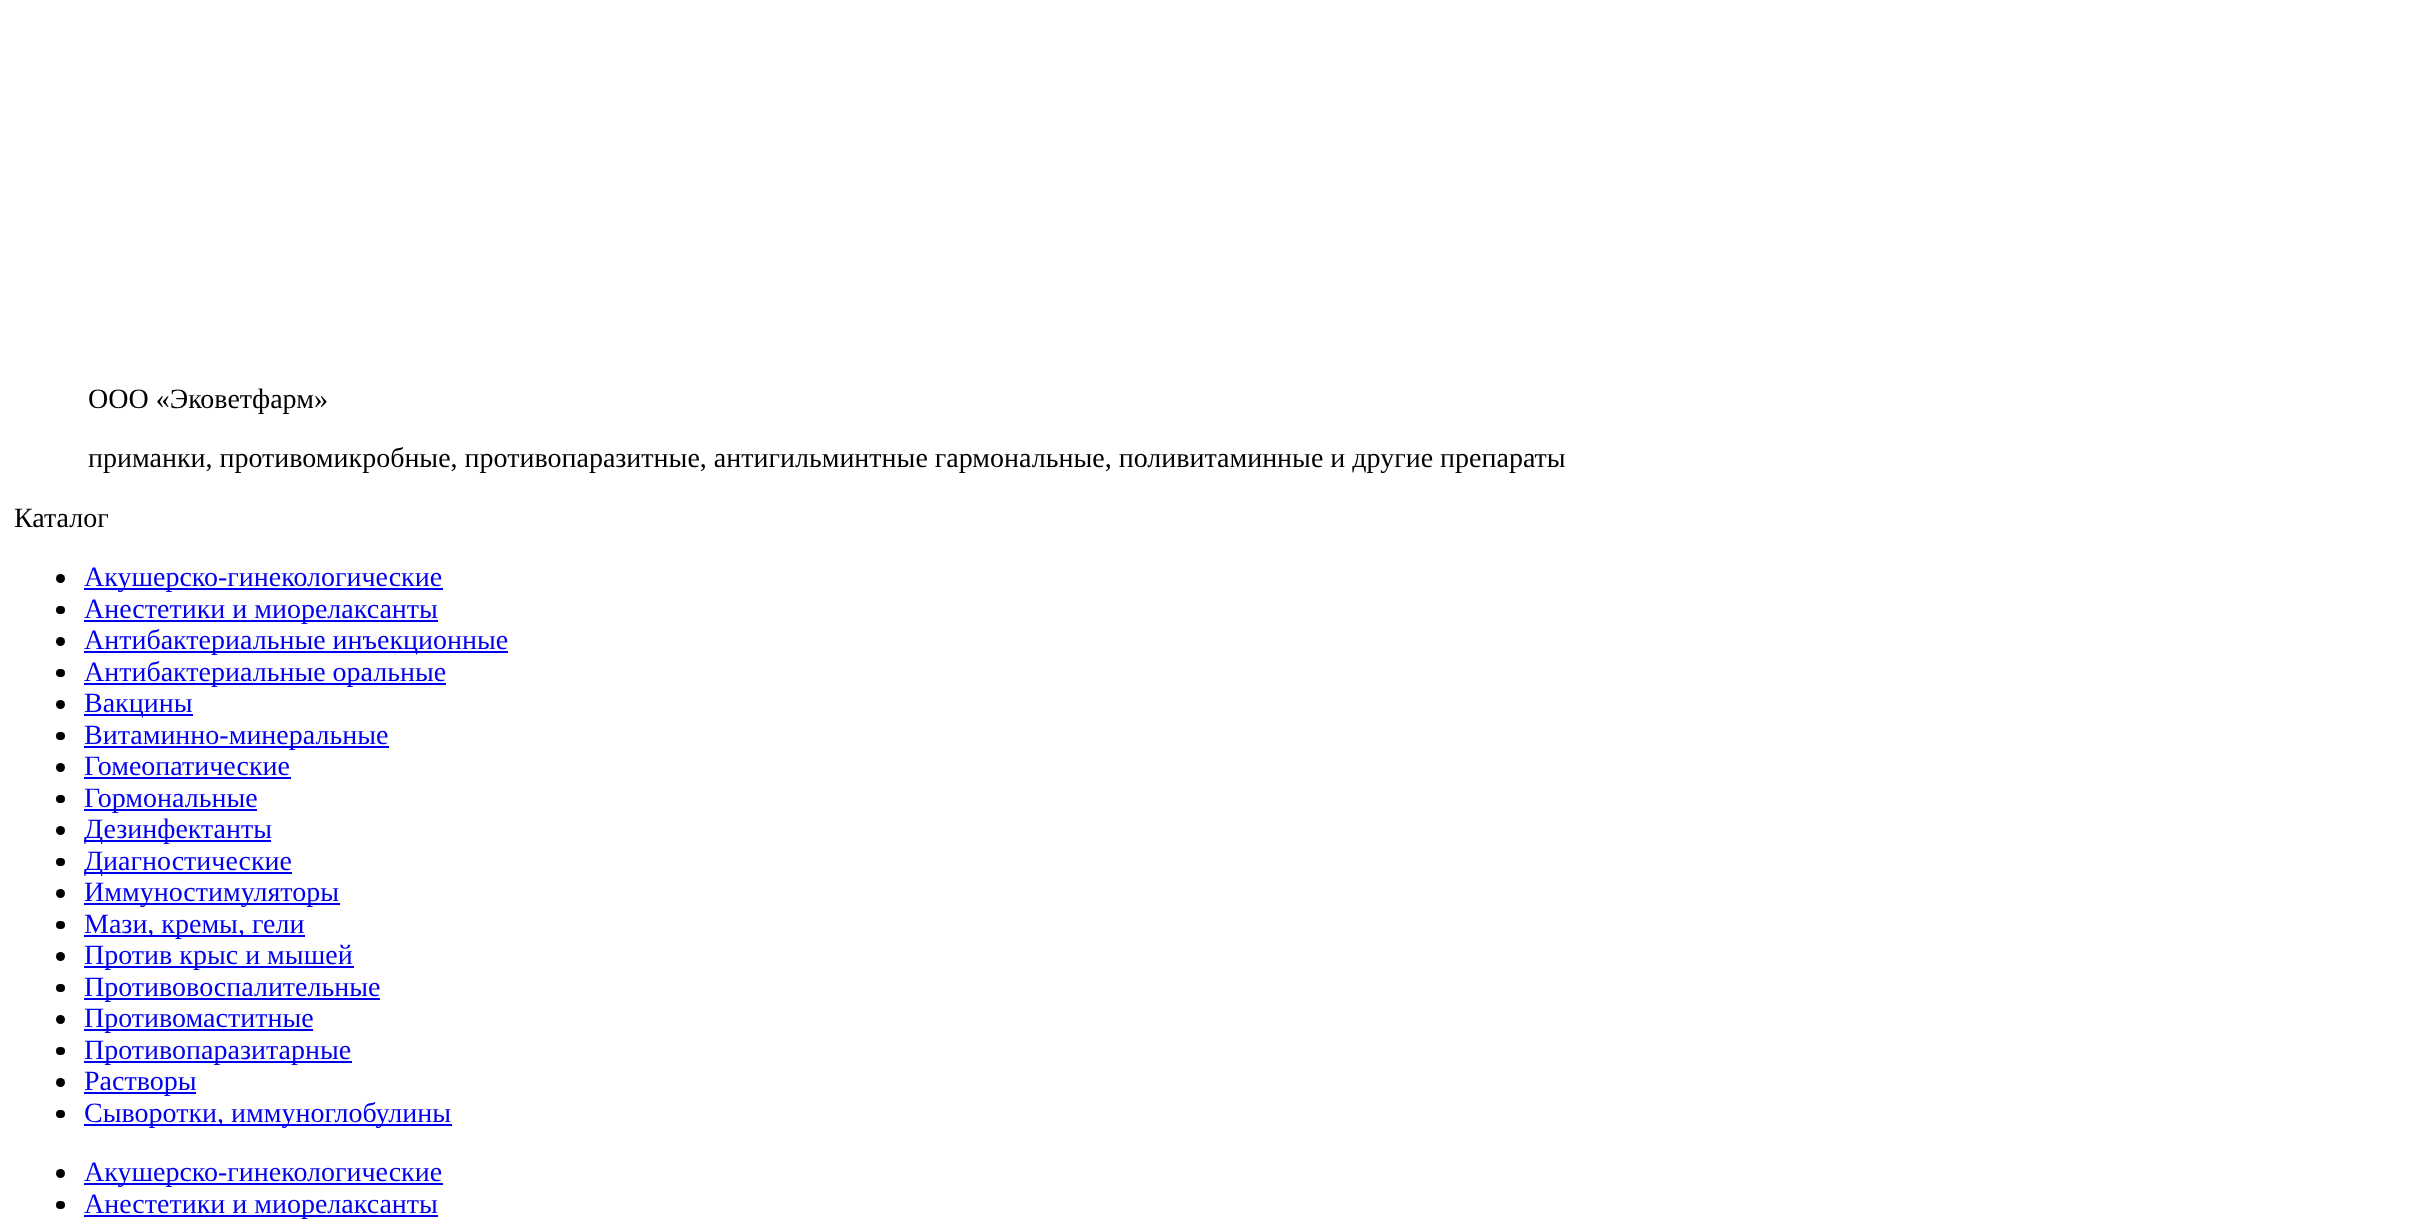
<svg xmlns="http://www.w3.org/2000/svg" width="2414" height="1228">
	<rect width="100%" height="100%" fill="#FFFFFF" />
	<g font-family="Liberation Serif" font-size="28" fill="#000000">
		<text x="88" y="408">ООО «Эковетфарм»</text>
		<text x="88" y="467">приманки, противомикробные, противопаразитные, антигильминтные гармональные, поливитаминные и другие препараты</text>
		<text x="14" y="527">Каталог</text>
	</g>
	<circle cx="60.5" cy="578.5" r="4.5" fill="#000000" />
	<rect x="84" y="588" width="359" height="2" fill="#0000EE" />
	<text x="84" y="586" font-family="Liberation Serif" font-size="28" fill="#0000EE">Акушерско-гинекологические</text>
	<rect x="56" y="606" width="9" height="8" rx="4" fill="#000000" />
	<rect x="84" y="620" width="354" height="2" fill="#0000EE" />
	<text x="84" y="618" font-family="Liberation Serif" font-size="28" fill="#0000EE">Анестетики и миорелаксанты</text>
	<circle cx="60.5" cy="641.5" r="4.5" fill="#000000" />
	<rect x="84" y="651" width="424" height="2" fill="#0000EE" />
	<text x="84" y="649" font-family="Liberation Serif" font-size="28" fill="#0000EE">Антибактериальные инъекционные</text>
	<rect x="56" y="669" width="9" height="8" rx="4" fill="#000000" />
	<rect x="84" y="683" width="362" height="2" fill="#0000EE" />
	<text x="84" y="681" font-family="Liberation Serif" font-size="28" fill="#0000EE">Антибактериальные оральные</text>
	<circle cx="60.5" cy="704.5" r="4.5" fill="#000000" />
	<rect x="84" y="714" width="109" height="2" fill="#0000EE" />
	<text x="84" y="712" font-family="Liberation Serif" font-size="28" fill="#0000EE">Вакцины</text>
	<rect x="56" y="732" width="9" height="8" rx="4" fill="#000000" />
	<rect x="84" y="746" width="305" height="2" fill="#0000EE" />
	<text x="84" y="744" font-family="Liberation Serif" font-size="28" fill="#0000EE">Витаминно-минеральные</text>
	<circle cx="60.5" cy="767.5" r="4.5" fill="#000000" />
	<text x="84" y="775" font-family="Liberation Serif" font-size="28" fill="#0000EE">Гомеопатические</text>
	<rect x="84" y="777" width="207" height="2" fill="#0000EE" />
	<rect x="56" y="795" width="9" height="8" rx="4" fill="#000000" />
	<rect x="84" y="809" width="173" height="2" fill="#0000EE" />
	<text x="84" y="807" font-family="Liberation Serif" font-size="28" fill="#0000EE">Гормональные</text>
	<circle cx="60.5" cy="830.5" r="4.5" fill="#000000" />
	<rect x="84" y="840" width="187" height="2" fill="#0000EE" />
	<text x="84" y="838" font-family="Liberation Serif" font-size="28" fill="#0000EE">Дезинфектанты</text>
	<rect x="56" y="858" width="9" height="8" rx="4" fill="#000000" />
	<rect x="84" y="872" width="208" height="2" fill="#0000EE" />
	<text x="84" y="870" font-family="Liberation Serif" font-size="28" fill="#0000EE">Диагностические</text>
	<circle cx="60.5" cy="893.5" r="4.5" fill="#000000" />
	<rect x="84" y="903" width="256" height="2" fill="#0000EE" />
	<text x="84" y="901" font-family="Liberation Serif" font-size="28" fill="#0000EE">Иммуностимуляторы</text>
	<rect x="56" y="921" width="9" height="8" rx="4" fill="#000000" />
	<rect x="84" y="935" width="221" height="2" fill="#0000EE" />
	<text x="84" y="933" font-family="Liberation Serif" font-size="28" fill="#0000EE">Мази, кремы, гели</text>
	<circle cx="60.5" cy="956.5" r="4.5" fill="#000000" />
	<rect x="84" y="966" width="270" height="2" fill="#0000EE" />
	<text x="84" y="964" font-family="Liberation Serif" font-size="28" fill="#0000EE">Против крыс и мышей</text>
	<rect x="56" y="984" width="9" height="8" rx="4" fill="#000000" />
	<rect x="84" y="998" width="296" height="2" fill="#0000EE" />
	<text x="84" y="996" font-family="Liberation Serif" font-size="28" fill="#0000EE">Противовоспалительные</text>
	<circle cx="60.5" cy="1019.5" r="4.5" fill="#000000" />
	<rect x="84" y="1029" width="229" height="2" fill="#0000EE" />
	<text x="84" y="1027" font-family="Liberation Serif" font-size="28" fill="#0000EE">Противомаститные</text>
	<rect x="56" y="1047" width="9" height="8" rx="4" fill="#000000" />
	<rect x="84" y="1061" width="268" height="2" fill="#0000EE" />
	<text x="84" y="1059" font-family="Liberation Serif" font-size="28" fill="#0000EE">Противопаразитарные</text>
	<circle cx="60.5" cy="1082.5" r="4.5" fill="#000000" />
	<rect x="84" y="1092" width="112" height="2" fill="#0000EE" />
	<text x="84" y="1090" font-family="Liberation Serif" font-size="28" fill="#0000EE">Растворы</text>
	<rect x="56" y="1110" width="9" height="8" rx="4" fill="#000000" />
	<rect x="84" y="1124" width="368" height="2" fill="#0000EE" />
	<text x="84" y="1122" font-family="Liberation Serif" font-size="28" fill="#0000EE">Сыворотки, иммуноглобулины</text>
	<circle cx="60.5" cy="1173.5" r="4.5" fill="#000000" />
	<rect x="84" y="1183" width="359" height="2" fill="#0000EE" />
	<text x="84" y="1181" font-family="Liberation Serif" font-size="28" fill="#0000EE">Акушерско-гинекологические</text>
	<rect x="56" y="1201" width="9" height="8" rx="4" fill="#000000" />
	<rect x="84" y="1215" width="354" height="2" fill="#0000EE" />
	<text x="84" y="1213" font-family="Liberation Serif" font-size="28" fill="#0000EE">Анестетики и миорелаксанты</text>
</svg>
